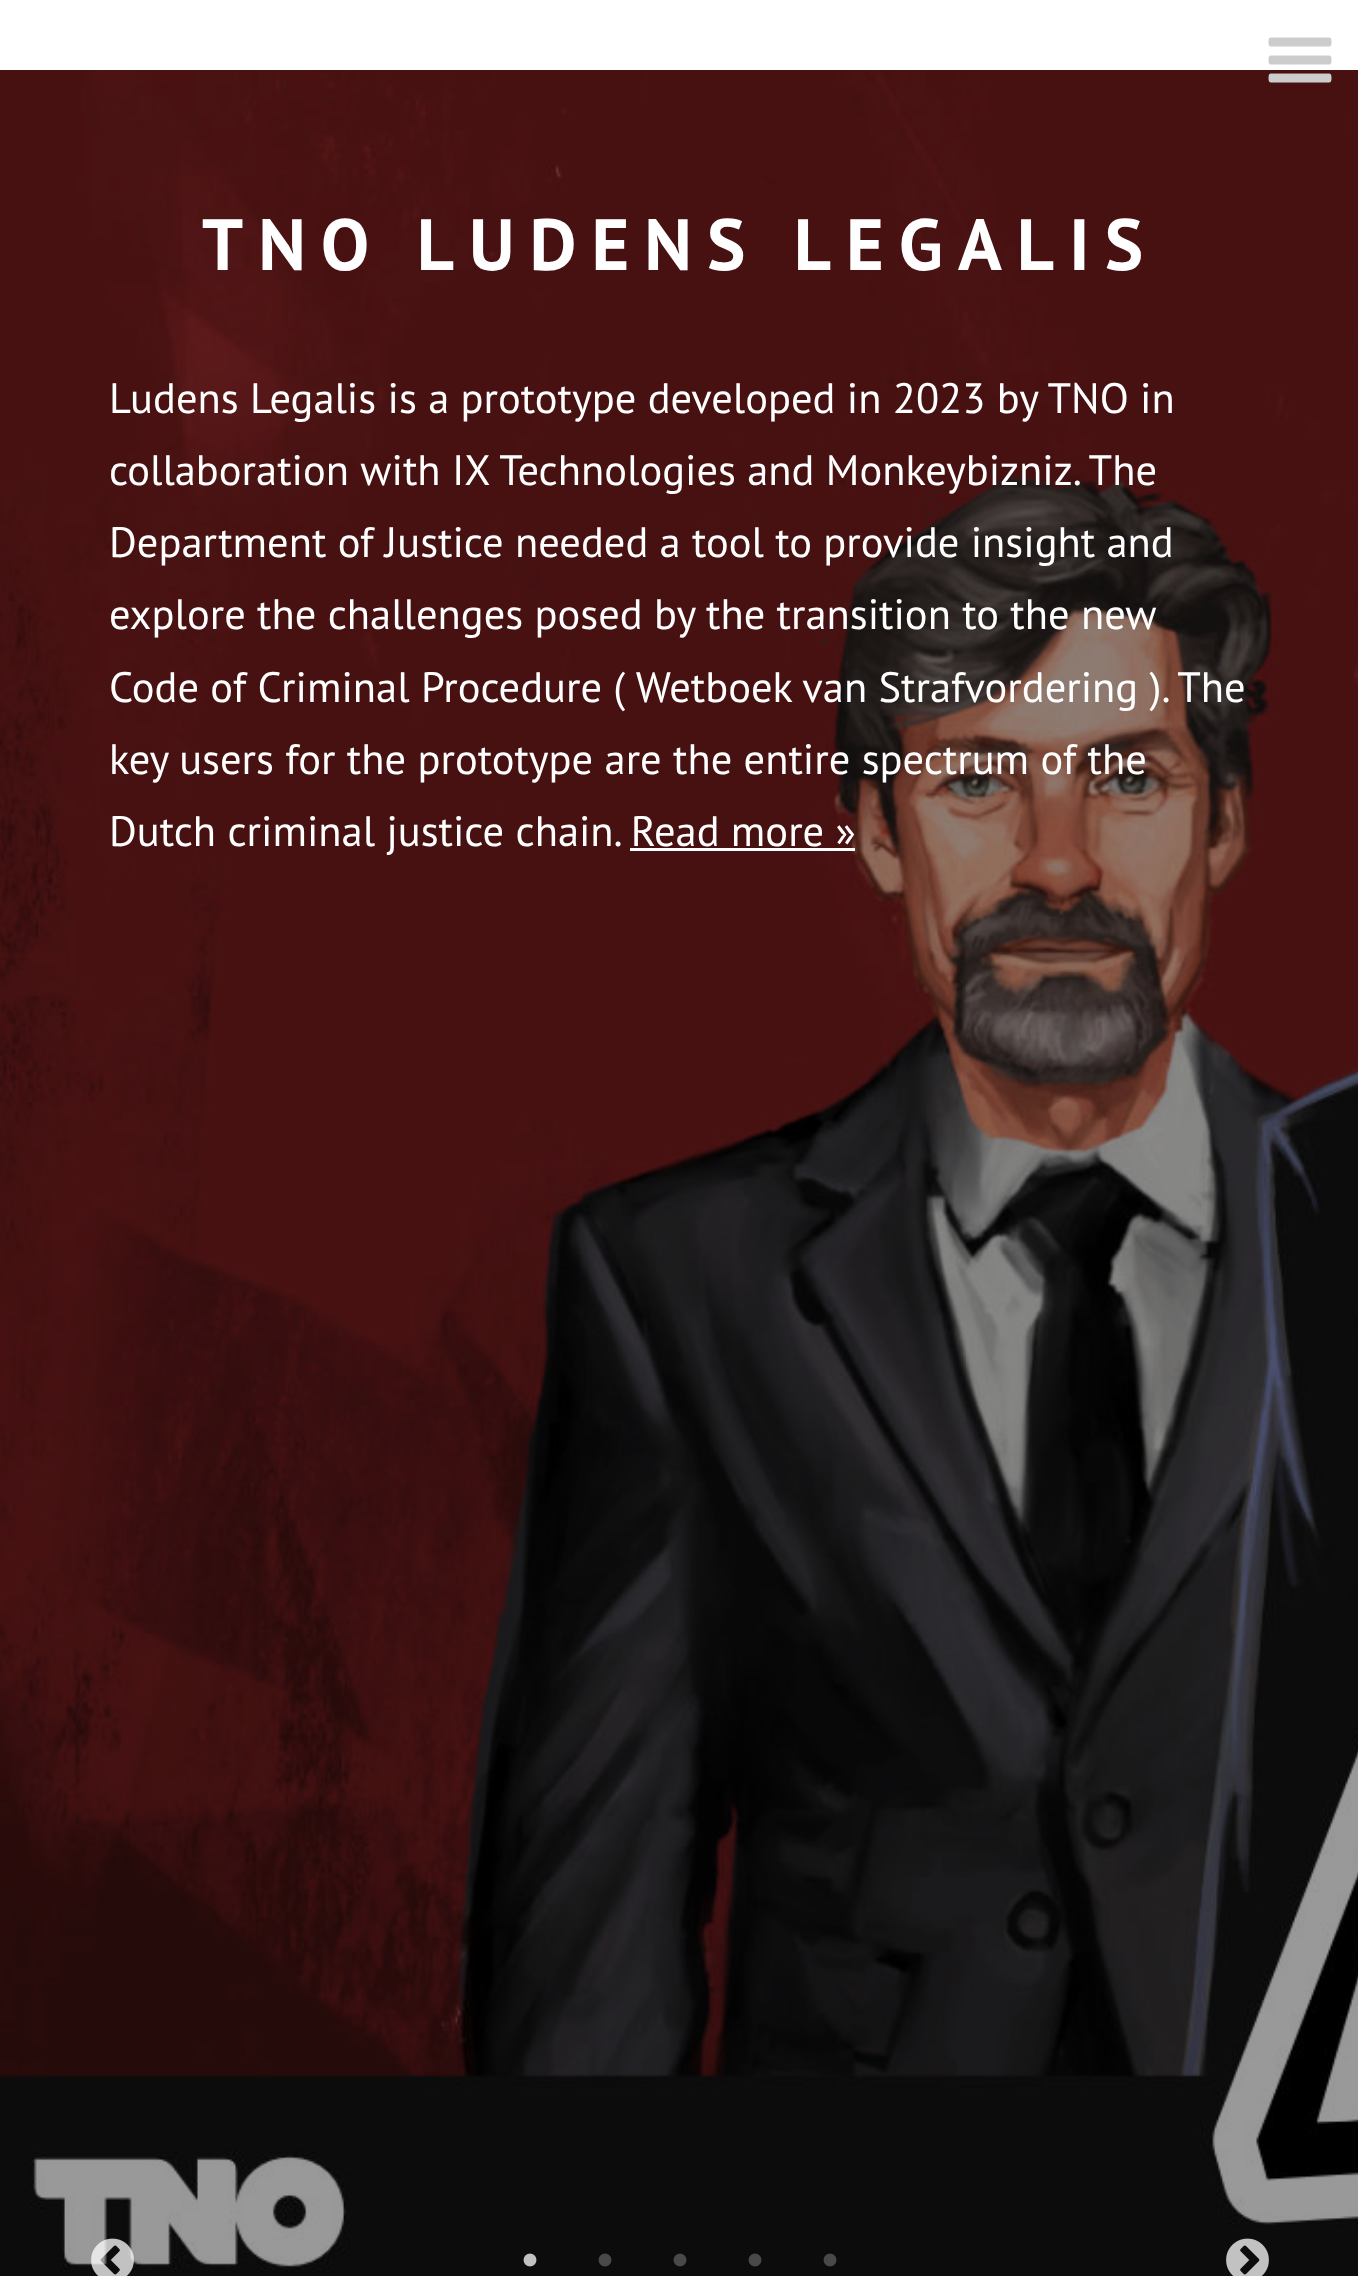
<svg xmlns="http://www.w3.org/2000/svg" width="1358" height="2276">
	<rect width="100%" height="100%" fill="#FFFFFF" />
	<image x="0" y="70" width="1358" height="2206" href="assets/img2.png" />
	<image x="1268" y="37" width="64" height="46" href="assets/img1.png" />
	<text x="202" y="270" font-family="PT Sans" font-size="72.5" font-weight="700" letter-spacing="15" fill="#FFFFFF">TNO LUDENS LEGALIS</text>
	<g font-family="PT Sans" font-size="42.5" fill="#FFFFFF">
		<text x="109" y="413">Ludens Legalis is a prototype developed in 2023 by TNO in</text>
		<text x="109" y="485">collaboration with IX Technologies and Monkeybizniz. The</text>
		<text x="109" y="557">Department of Justice needed a tool to provide insight and</text>
		<text x="109" y="629">explore the challenges posed by the transition to the new</text>
		<text x="109" y="702">Code of Criminal Procedure ( Wetboek van Strafvordering ). The</text>
		<text x="109" y="774">key users for the prototype are the entire spectrum of the</text>
		<text x="109" y="846">Dutch criminal justice chain. Read more »</text>
	</g>
	<rect x="630" y="848" width="225" height="3" fill="#FFFFFF" />
	<image x="91" y="2238" width="43" height="38" href="assets/img3.png" />
	<image x="523" y="2253" width="14" height="14" href="assets/img4.png" />
	<image x="598" y="2253" width="14" height="14" href="assets/img5.png" />
	<image x="673" y="2253" width="14" height="14" href="assets/img5.png" />
	<image x="748" y="2253" width="14" height="14" href="assets/img5.png" />
	<image x="823" y="2253" width="14" height="14" href="assets/img5.png" />
	<image x="1226" y="2238" width="43" height="38" href="assets/img6.png" />
</svg>
